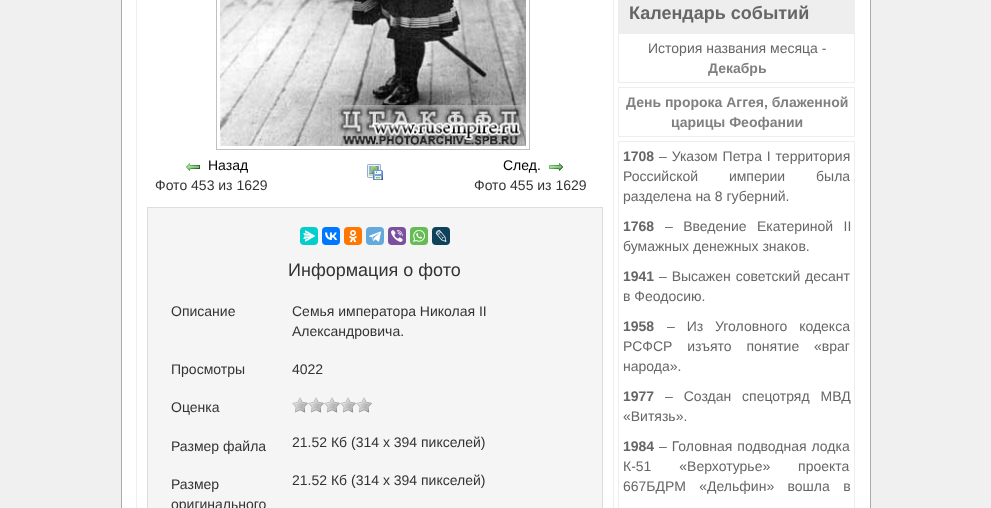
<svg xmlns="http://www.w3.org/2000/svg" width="991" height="508">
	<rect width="100%" height="100%" fill="#F0F0F0" />
	<rect x="122" y="0" width="748" height="508" fill="#FFFFFF" />
	<rect x="870" y="0" width="1" height="508" fill="#AAAAAA" />
	<rect x="121" y="0" width="1" height="508" fill="#AAAAAA" />
	<rect x="136.5" y="-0.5" width="477" height="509" fill="none" stroke="#EEEEEE" />
	<rect x="216.5" y="-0.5" width="313" height="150" fill="none" stroke="#C0C0C0" />
	<image x="220" y="0" width="306" height="146" href="assets/img1.png" />
	<image x="186" y="163" width="14" height="8" href="assets/img2.png" />
	<text x="208" y="170" font-family="Liberation Sans" font-size="14" fill="#000000">Назад</text>
	<text x="155" y="190" font-family="Liberation Sans" font-size="14" fill="#333333">Фото 453 из 1629</text>
	<image x="367" y="164" width="16" height="16" href="assets/img3.png" />
	<text x="503" y="170" font-family="Liberation Sans" font-size="14" fill="#000000">След.</text>
	<image x="549" y="163" width="14" height="8" href="assets/img4.png" />
	<text x="474" y="190" font-family="Liberation Sans" font-size="14" fill="#333333">Фото 455 из 1629</text>
	<rect x="147.5" y="207.5" width="455" height="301" fill="#F5F5F5" stroke="#DDDDDD" />
	<rect x="300" y="227" width="18" height="18" rx="4" fill="#03CECE" />
	<image x="303" y="230" width="12" height="12" href="assets/img5.png" />
	<rect x="322" y="227" width="18" height="18" rx="4" fill="#0077FF" />
	<image x="325" y="232" width="12" height="8" href="assets/img6.png" />
	<rect x="344" y="227" width="18" height="18" rx="4" fill="#FF7700" />
	<image x="349" y="230" width="8" height="12" href="assets/img7.png" />
	<rect x="366" y="227" width="18" height="18" rx="4" fill="#64A9DC" />
	<image x="369" y="231" width="12" height="11" href="assets/img8.png" />
	<rect x="388" y="227" width="18" height="18" rx="4" fill="#7B519D" />
	<image x="391" y="230" width="12" height="12" href="assets/img9.png" />
	<rect x="410" y="227" width="18" height="18" rx="4" fill="#65BC54" />
	<image x="413" y="230" width="12" height="12" href="assets/img10.png" />
	<rect x="432" y="227" width="18" height="18" rx="4" fill="#0D425A" />
	<image x="435" y="230" width="12" height="12" href="assets/img11.png" />
	<text x="288" y="276" font-family="Liberation Sans" font-size="18" fill="#333333">Информация о фото</text>
	<g font-family="Liberation Sans" font-size="14" fill="#333333">
		<text x="171" y="316">Описание</text>
		<text x="292" y="316">Семья императора Николая II</text>
		<text x="292" y="336">Александровича.</text>
		<text x="171" y="374">Просмотры</text>
		<text x="292" y="374">4022</text>
		<text x="171" y="412">Оценка</text>
	</g>
	<image x="292" y="397" width="80" height="16" href="assets/img12.png" />
	<g font-family="Liberation Sans" font-size="14" fill="#333333">
		<text x="171" y="451">Размер файла</text>
		<text x="292" y="447">21.52 Кб (314 x 394 пикселей)</text>
		<text x="171" y="489">Размер</text>
		<text x="171" y="509">оригинального</text>
		<text x="292" y="485">21.52 Кб (314 x 394 пикселей)</text>
	</g>
	<rect x="618.5" y="-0.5" width="236" height="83" fill="none" stroke="#EEEEEE" />
	<rect x="619" y="0" width="235" height="34" fill="#EEEEEE" />
	<text x="629" y="19" font-family="Liberation Sans" font-size="18" font-weight="700" fill="#666666">Календарь событий</text>
	<text x="648" y="53" font-family="Liberation Sans" font-size="14" fill="#666666">История названия месяца -</text>
	<text x="708" y="73" font-family="Liberation Sans" font-size="14" font-weight="700" fill="#808080">Декабрь</text>
	<rect x="618.5" y="87.5" width="236" height="49" fill="none" stroke="#EEEEEE" />
	<g font-family="Liberation Sans" font-size="14" font-weight="700" fill="#808080">
		<text x="626" y="107">День пророка Аггея, блаженной</text>
		<text x="671" y="127">царицы Феофании</text>
	</g>
	<rect x="618.5" y="141.5" width="236" height="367" fill="none" stroke="#EEEEEE" />
	<text x="623" y="161" font-family="Liberation Sans" font-size="14" font-weight="700" fill="#666666">1708</text>
	<g font-family="Liberation Sans" font-size="14" fill="#666666">
		<text x="659" y="161" word-spacing="1">– Указом Петра I территория</text>
		<text x="623" y="181" word-spacing="27">Российской империи была</text>
		<text x="623" y="201">разделена на 8 губерний.</text>
	</g>
	<text x="623" y="231" font-family="Liberation Sans" font-size="14" font-weight="700" fill="#666666">1768</text>
	<g font-family="Liberation Sans" font-size="14" fill="#666666">
		<text x="665" y="231" word-spacing="6.5">– Введение Екатериной II</text>
		<text x="623" y="251">бумажных денежных знаков.</text>
	</g>
	<text x="623" y="281" font-family="Liberation Sans" font-size="14" font-weight="700" fill="#666666">1941</text>
	<g font-family="Liberation Sans" font-size="14" fill="#666666">
		<text x="659" y="281" word-spacing="1">– Высажен советский десант</text>
		<text x="623" y="301">в Феодосию.</text>
	</g>
	<text x="623" y="331" font-family="Liberation Sans" font-size="14" font-weight="700" fill="#666666">1958</text>
	<g font-family="Liberation Sans" font-size="14" fill="#666666">
		<text x="667" y="331" word-spacing="8">– Из Уголовного кодекса</text>
		<text x="623" y="351" word-spacing="11">РСФСР изъято понятие «враг</text>
		<text x="623" y="371">народа».</text>
	</g>
	<text x="623" y="401" font-family="Liberation Sans" font-size="14" font-weight="700" fill="#666666">1977</text>
	<g font-family="Liberation Sans" font-size="14" fill="#666666">
		<text x="665" y="401" word-spacing="7">– Создан спецотряд МВД</text>
		<text x="623" y="421">«Витязь».</text>
	</g>
	<text x="623" y="451" font-family="Liberation Sans" font-size="14" font-weight="700" fill="#666666">1984</text>
	<g font-family="Liberation Sans" font-size="14" fill="#666666">
		<text x="659" y="451" word-spacing="1">– Головная подводная лодка</text>
		<text x="623" y="471" word-spacing="24">К-51 «Верхотурье» проекта</text>
		<text x="623" y="491" word-spacing="9.5">667БДРМ «Дельфин» вошла в</text>
	</g>
</svg>
